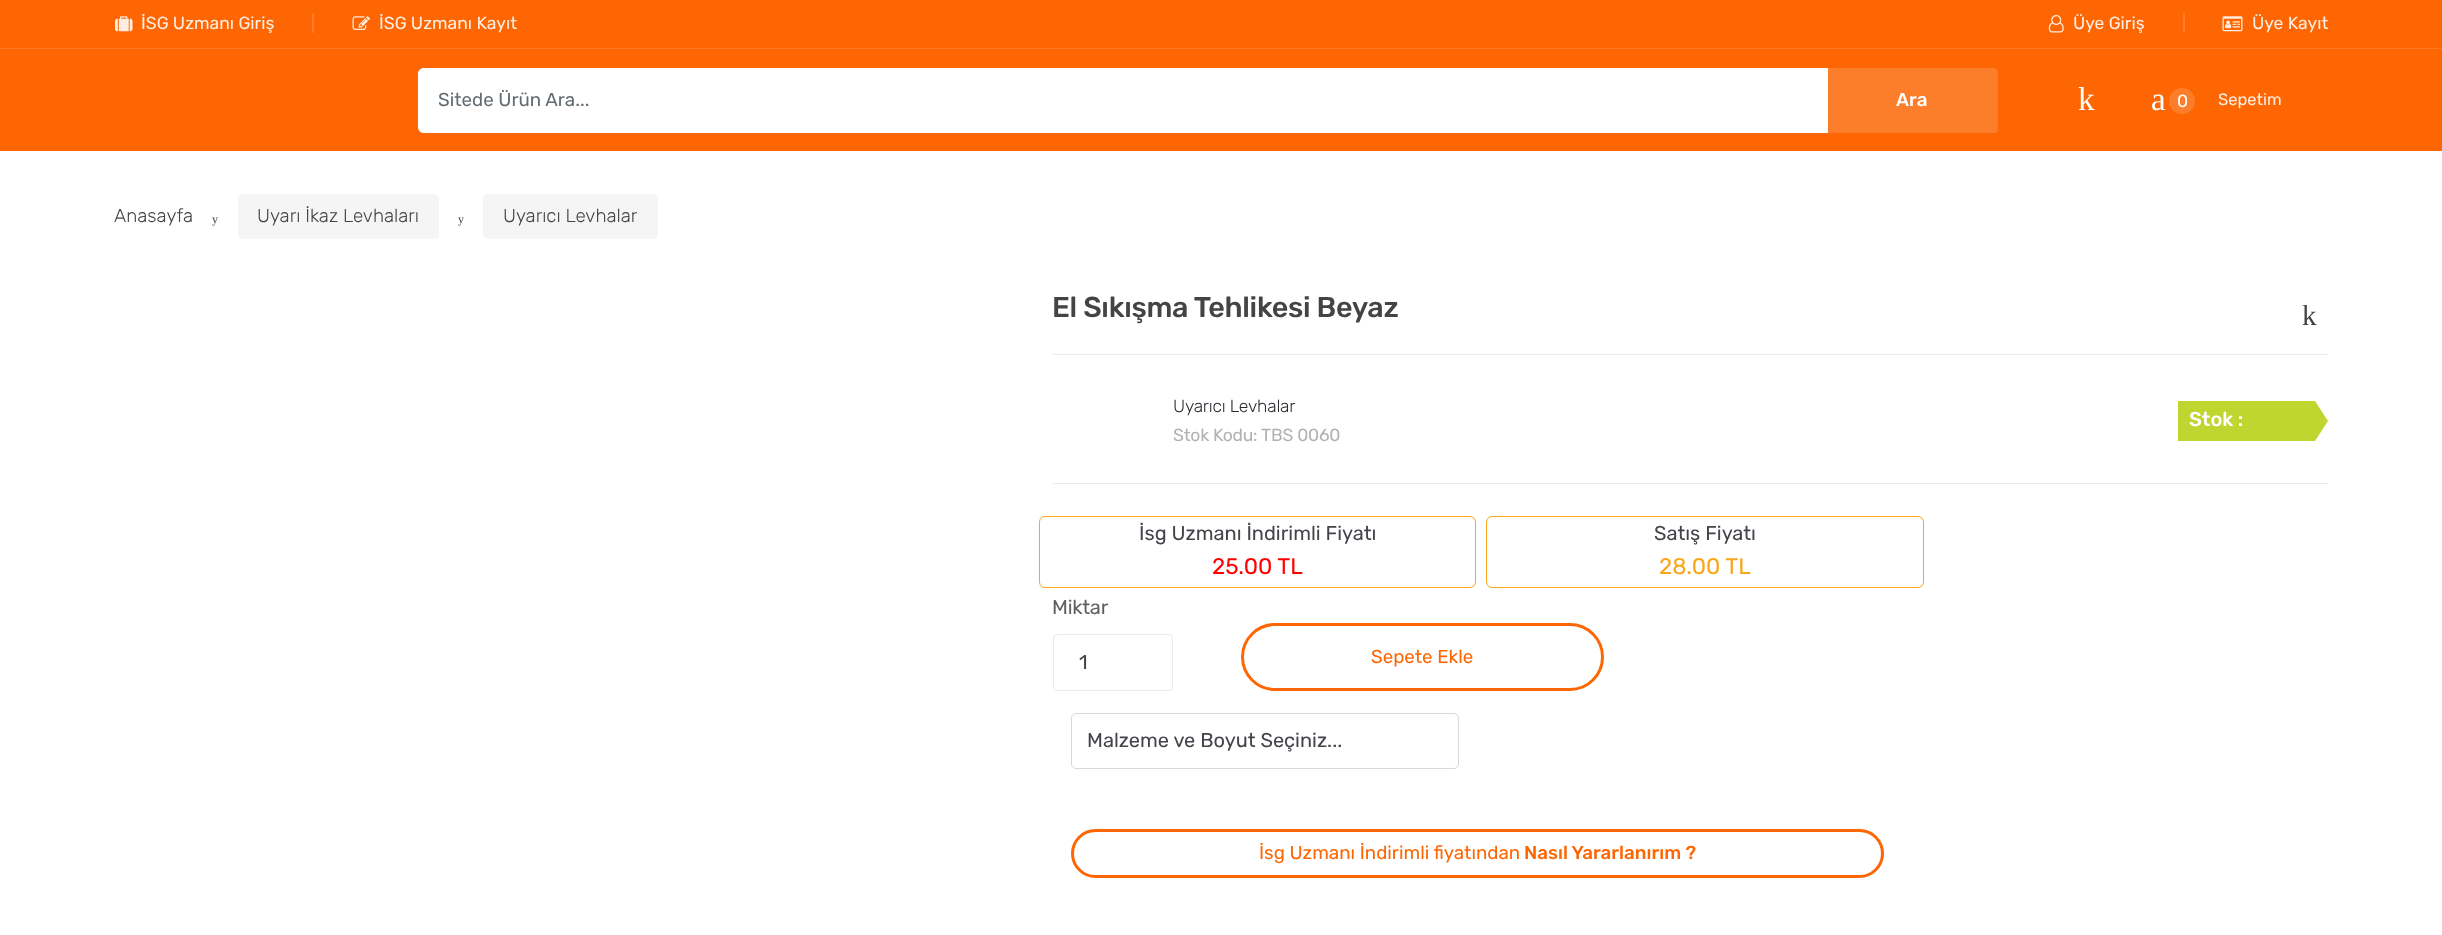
<svg xmlns="http://www.w3.org/2000/svg" width="2442" height="935">
	<rect width="100%" height="100%" fill="#FFFFFF" />
	<rect x="0" y="0" width="2442" height="48" fill="#FD6602" />
	<rect x="0" y="48" width="2442" height="1" fill="#FD7820" />
	<image x="115" y="16" width="18" height="16" href="assets/img1.png" />
	<text x="141" y="29" font-family="Rubik" font-size="17.5" fill="#FFEDE1">İSG Uzmanı Giriş</text>
	<text x="311" y="29" font-family="Rubik" font-size="17.5" fill="#FD8535">|</text>
	<image x="352" y="16" width="18" height="14" href="assets/img2.png" />
	<text x="379" y="29" font-family="Rubik" font-size="17.5" fill="#FFEDE1">İSG Uzmanı Kayıt</text>
	<image x="2048" y="15" width="16" height="18" href="assets/img3.png" />
	<text x="2073" y="29" font-family="Rubik" font-size="17.5" fill="#FFEDE1">Üye Giriş</text>
	<text x="2182" y="29" font-family="Rubik" font-size="17.5" fill="#FD8535">|</text>
	<image x="2222" y="16" width="21" height="16" href="assets/img4.png" />
	<text x="2252" y="29" font-family="Rubik" font-size="17.5" fill="#FFEDE1">Üye Kayıt</text>
	<rect x="0" y="49" width="2442" height="102" fill="#FD6602" />
	<path d="M424 68H1829V133H424C420.5 133 418 130.5 418 127V74C418 70.5 420.5 68 424 68Z" fill="#FFFFFF" />
	<text x="438" y="106" font-family="Rubik" font-size="18.75" fill="#636C72">Sitede Ürün Ara...</text>
	<path d="M1828 68H1993C1996 68 1998 70 1998 73V128C1998 131 1996 133 1993 133H1828Z" fill="#FD7E2A" />
	<text x="1896" y="106" font-family="Rubik" font-size="18.75" font-weight="500" fill="#FFFFFF">Ara</text>
	<g font-family="Liberation Serif" font-size="33" fill="#FFFFFF">
		<text x="2078" y="110">k</text>
		<text x="2151" y="110">a</text>
	</g>
	<circle cx="2182" cy="101" r="13" fill="#FD7E2A" />
	<text x="2177" y="107" font-family="Rubik" font-size="17.5" letter-spacing="-1" fill="#FFFFFF">0</text>
	<text x="2218" y="105" font-family="Rubik" font-size="16.5" fill="#FFEDE1">Sepetim</text>
	<text x="114" y="222" font-family="Rubik" font-size="18.75" font-weight="300" fill="#444444">Anasayfa</text>
	<text x="212" y="223" font-family="Liberation Serif" font-size="12" fill="#444444">y</text>
	<rect x="238" y="194" width="201" height="45" rx="5" fill="#F5F5F5" />
	<text x="257" y="222" font-family="Rubik" font-size="18.75" font-weight="300" fill="#444444">Uyarı İkaz Levhaları</text>
	<text x="458" y="223" font-family="Liberation Serif" font-size="12" fill="#444444">y</text>
	<rect x="483" y="194" width="175" height="45" rx="5" fill="#F5F5F5" />
	<text x="503" y="222" font-family="Rubik" font-size="18.75" font-weight="300" fill="#444444">Uyarıcı Levhalar</text>
	<rect x="1053" y="354" width="1275" height="1" fill="#EBEBEB" />
	<text x="1052" y="317" font-family="Rubik" font-size="28.75" font-weight="500" letter-spacing="-0.3" fill="#444444">El Sıkışma Tehlikesi Beyaz</text>
	<text x="2302" y="325" font-family="Liberation Serif" font-size="29" fill="#444444">k</text>
	<rect x="1053" y="483" width="1275" height="1" fill="#EBEBEB" />
	<text x="1173" y="412" font-family="Rubik" font-size="17.5" font-weight="300" letter-spacing="-0.2" fill="#2C2D33">Uyarıcı Levhalar</text>
	<g font-family="Rubik" font-size="17.5" letter-spacing="-0.2" fill="#B3B2B2">
		<text x="1173" y="441">Stok Kodu:</text>
		<text x="1261" y="441">TBS 0060</text>
	</g>
	<rect x="2178" y="401" width="137" height="40" fill="#BFD630" />
	<path d="M2315 441V401L2328 421Z" fill="#BFD630" />
	<text x="2189" y="426" font-family="Rubik" font-size="20" font-weight="500" fill="#FFFFFF">Stok :</text>
	<rect x="1039.5" y="516.5" width="436" height="71" rx="5.5" fill="none" stroke="#FAA61B" />
	<text x="1139" y="540" font-family="Rubik" font-size="20" fill="#43454B">İsg Uzmanı İndirimli Fiyatı</text>
	<text x="1212" y="574" font-family="Rubik" font-size="22.5" fill="#FF0000">25.00 TL</text>
	<rect x="1486.5" y="516.5" width="437" height="71" rx="5.5" fill="none" stroke="#FAA61B" />
	<text x="1654" y="540" font-family="Rubik" font-size="20" fill="#43454B">Satış Fiyatı</text>
	<text x="1659" y="574" font-family="Rubik" font-size="22.5" fill="#FAA61B">28.00 TL</text>
	<text x="1052" y="614" font-family="Rubik" font-size="20" letter-spacing="-0.25" fill="#626060">Miktar</text>
	<rect x="1053.5" y="634.5" width="119" height="56" rx="3.5" fill="none" stroke="#EBEBEB" />
	<text x="1079" y="669" font-family="Rubik" font-size="20" fill="#444444">1</text>
	<rect x="1242.5" y="624.5" width="360" height="65" rx="32.5" fill="none" stroke="#FD6602" stroke-width="3" />
	<text x="1371" y="663" font-family="Rubik" font-size="18.75" fill="#FD6602">Sepete Ekle</text>
	<rect x="1071.5" y="713.5" width="387" height="55" rx="4.5" fill="none" stroke="#D9D9D9" />
	<text x="1087" y="747" font-family="Rubik" font-size="20" fill="#43454B">Malzeme ve Boyut Seçiniz...</text>
	<rect x="1072.5" y="830.5" width="810" height="46" rx="23" fill="none" stroke="#FD6602" stroke-width="3" />
	<text x="1259" y="859" font-family="Rubik" font-size="18.75" fill="#FD6602">İsg Uzmanı İndirimli fiyatından</text>
	<text x="1524" y="859" font-family="Rubik" font-size="18.75" font-weight="500" fill="#FD6602">Nasıl Yararlanırım ?</text>
</svg>
